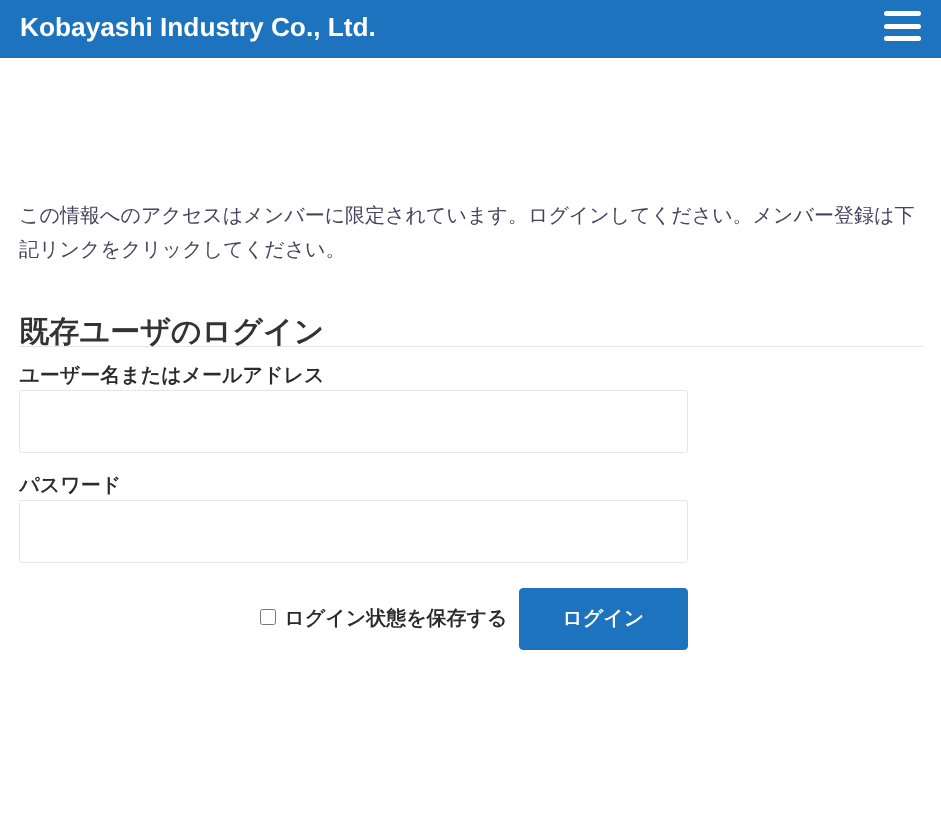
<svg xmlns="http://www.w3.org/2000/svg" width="941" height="832">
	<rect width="100%" height="100%" fill="#FFFFFF" />
	<rect x="0" y="0" width="941" height="53" fill="#1E73BE" />
	<text x="20" y="36" font-family="Liberation Sans" font-size="26.25" font-weight="700" fill="#FFFFFF">Kobayashi Industry Co., Ltd.</text>
	<rect x="884" y="11" width="37" height="5" rx="2.5" fill="#FFFFFF" />
	<rect x="884" y="24" width="37" height="5" rx="2.5" fill="#FFFFFF" />
	<rect x="884" y="36" width="37" height="5" rx="2.5" fill="#FFFFFF" />
	<rect x="0" y="53" width="941" height="5" fill="#1D73BE" />
	<g font-family="WenQuanYi Zen Hei" font-size="20" font-weight="500" fill="#47425D">
		<text x="19" y="222">この情報へのアクセスはメンバーに限定されています。ログインしてください。メンバー登録は下</text>
		<text x="19" y="256">記リンクをクリックしてください。</text>
	</g>
	<rect x="19" y="346" width="904" height="1" fill="#E5E5E5" />
	<text x="19" y="342" font-family="WenQuanYi Zen Hei" font-size="30" font-weight="700" fill="#333333">既存ユーザのログイン</text>
	<text x="19" y="382" font-family="WenQuanYi Zen Hei" font-size="20" font-weight="700" fill="#2B2B2B">ユーザー名またはメールアドレス</text>
	<rect x="19.5" y="390.5" width="668" height="62" rx="2" fill="none" stroke="#E6E6E6" />
	<text x="19" y="492" font-family="WenQuanYi Zen Hei" font-size="20" font-weight="700" fill="#2B2B2B">パスワード</text>
	<rect x="19.5" y="500.5" width="668" height="62" rx="2" fill="none" stroke="#E6E6E6" />
	<rect x="260.5" y="609.5" width="15" height="15" rx="2" fill="none" stroke="#767676" />
	<text x="284" y="625" font-family="WenQuanYi Zen Hei" font-size="20" font-weight="700" fill="#2B2B2B">ログイン状態を保存する</text>
	<rect x="519.5" y="588.5" width="168" height="61" rx="3.5" fill="#1E73BE" stroke="#1E73BE" />
	<text x="562" y="625" font-family="WenQuanYi Zen Hei" font-size="20" font-weight="700" fill="#FFFFFF">ログイン</text>
</svg>
